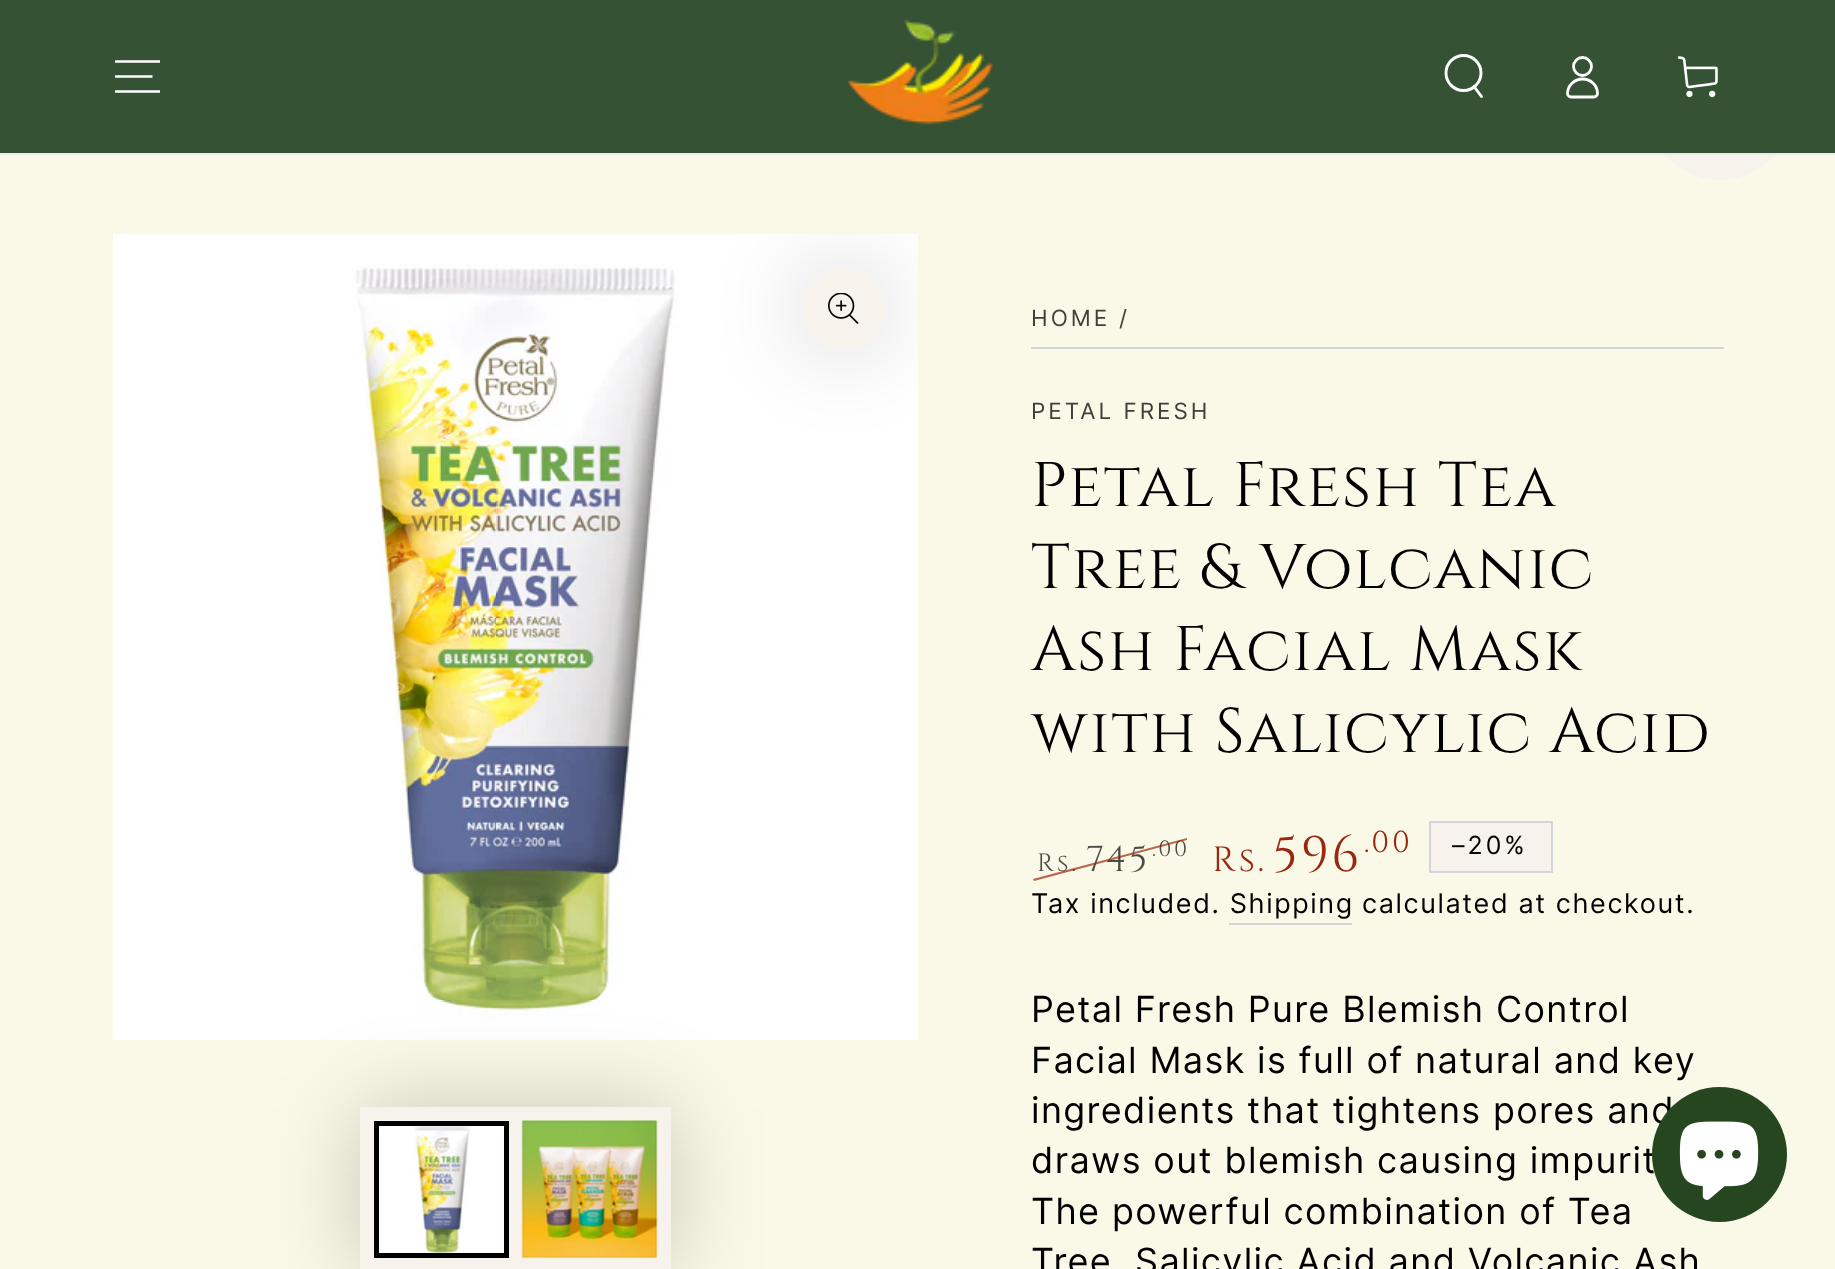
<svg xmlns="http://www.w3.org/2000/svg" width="1835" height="1269">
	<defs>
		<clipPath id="clip1"><rect x="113" y="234" width="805" height="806" /></clipPath>
	</defs>
	<rect width="100%" height="100%" fill="#FAF9E7" />
	<circle cx="1720" cy="107" r="73" fill="#F7F3EC" />
	<image x="113" y="234" width="805" height="806" href="assets/img4.png" />
	<g clip-path="url(#clip1)">
		<rect x="803" y="268" width="81" height="81" rx="40.5" fill="#000000" fill-opacity="0.2" filter="blur(45px)" />
	</g>
	<rect x="0" y="153" width="1835" height="2" fill="#D2D5D9" fill-opacity="0.3" />
	<rect x="0" y="0" width="1835" height="153" fill="#355235" />
	<path d="M115 91.5H160M115 76.5H152.5M115 61.5H160" fill="none" stroke="#FFFFFF" stroke-width="2.5" />
	<image x="847" y="20" width="146" height="105" href="assets/img1.png" />
	<circle cx="1463.5" cy="73" r="17.5" fill="none" stroke="#FFFFFF" stroke-width="2.9" />
	<path d="M1474 86.5L1481.5 96.5" fill="none" stroke="#FFFFFF" stroke-width="2.9" stroke-linecap="round" />
	<path d="M1582.5 79C1574.5 79 1567.5 85.5 1567.5 93.5C1567.5 95 1569 97 1571 97H1594C1596 97 1597.5 95 1597.5 93.5C1597.5 85.5 1591 79 1582.5 79Z" fill="none" stroke="#FFFFFF" stroke-width="2.8" />
	<circle cx="1582.5" cy="66.5" r="9" fill="none" stroke="#FFFFFF" stroke-width="2.8" />
	<image x="1678" y="56" width="40" height="42" href="assets/img2.png" />
	<circle cx="843.5" cy="308.5" r="40.5" fill="#F7F3EC" />
	<image x="828" y="293" width="31" height="31" href="assets/img3.png" />
	<rect x="360" y="1107" width="311" height="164" fill="#000000" fill-opacity="0.2" filter="blur(45px)" />
	<rect x="360" y="1107" width="311" height="162" fill="#F7F3EC" />
	<image x="373" y="1120" width="136" height="138" href="assets/img5.png" />
	<rect x="376.5" y="1123.5" width="130" height="132" fill="none" stroke="#000000" stroke-width="5" />
	<rect x="522" y="1121" width="135" height="137" fill="#F3F3F3" />
	<image x="521" y="1120" width="137" height="139" href="assets/img6.png" />
	<rect x="523" y="1122" width="133" height="135" fill="none" stroke="#000000" stroke-opacity="0.04" stroke-width="2" />
	<rect x="1031" y="347" width="693" height="2" fill="#D2D5D9" />
	<g font-family="Inter" font-size="22.5" letter-spacing="3" fill="#3F3E3A">
		<text x="1031" y="326">HOME</text>
		<text x="1119" y="326">/</text>
		<text x="1031" y="419">PETAL FRESH</text>
	</g>
	<g font-family="Cinzel" font-size="63" letter-spacing="1.35" fill="#000000">
		<text x="1031" y="506">Petal Fresh Tea</text>
		<text x="1031" y="588">Tree &amp; Volcanic</text>
		<text x="1031" y="670">Ash Facial Mask</text>
		<text x="1031" y="752">with Salicylic Acid</text>
	</g>
	<text x="1037" y="871" font-family="Cinzel" font-size="25" letter-spacing="3" fill="#4B4B45">Rs.</text>
	<text x="1086" y="871" font-family="Cinzel" font-size="36" letter-spacing="3" fill="#4B4B45">745</text>
	<text x="1152" y="856" font-family="Cinzel" font-size="22" letter-spacing="3" fill="#4B4B45">.00</text>
	<path d="M1033 879L1187 838V840L1034 881Z" fill="#9A270F" fill-opacity="0.7" />
	<text x="1212" y="871" font-family="Cinzel" font-size="35" letter-spacing="3" fill="#9A270F">Rs.</text>
	<text x="1273" y="871" font-family="Cinzel" font-size="50" letter-spacing="3" fill="#9A270F">596</text>
	<text x="1364" y="852" font-family="Cinzel" font-size="30" letter-spacing="3" fill="#9A270F">.00</text>
	<rect x="1430" y="822" width="122" height="50" fill="#F7F3EC" stroke="#D2D5D9" stroke-width="2" />
	<text x="1452" y="854" font-family="Inter" font-size="25" letter-spacing="3" fill="#000000">–20%</text>
	<g font-family="Inter" font-size="27" letter-spacing="1.6" fill="#000000">
		<text x="1031" y="913">Tax included. Shipping</text>
		<text x="1362" y="913">calculated at checkout.</text>
	</g>
	<rect x="1229" y="923" width="123" height="2" fill="#D2D5D9" />
	<g font-family="Inter" font-size="36" letter-spacing="1.35" fill="#000000">
		<text x="1031" y="1022">Petal Fresh Pure Blemish Control</text>
		<text x="1031" y="1073">Facial Mask is full of natural and key</text>
		<text x="1031" y="1123">ingredients that tightens pores and</text>
		<text x="1031" y="1173">draws out blemish causing impurit</text>
		<text x="1031" y="1224">The powerful combination of Tea</text>
		<text x="1031" y="1274">Tree, Salicylic Acid and Volcanic Ash</text>
	</g>
	<circle cx="1719.5" cy="1154.5" r="67.5" fill="#25461F" />
	<image x="1679" y="1121" width="80" height="79" href="assets/img7.png" />
</svg>
